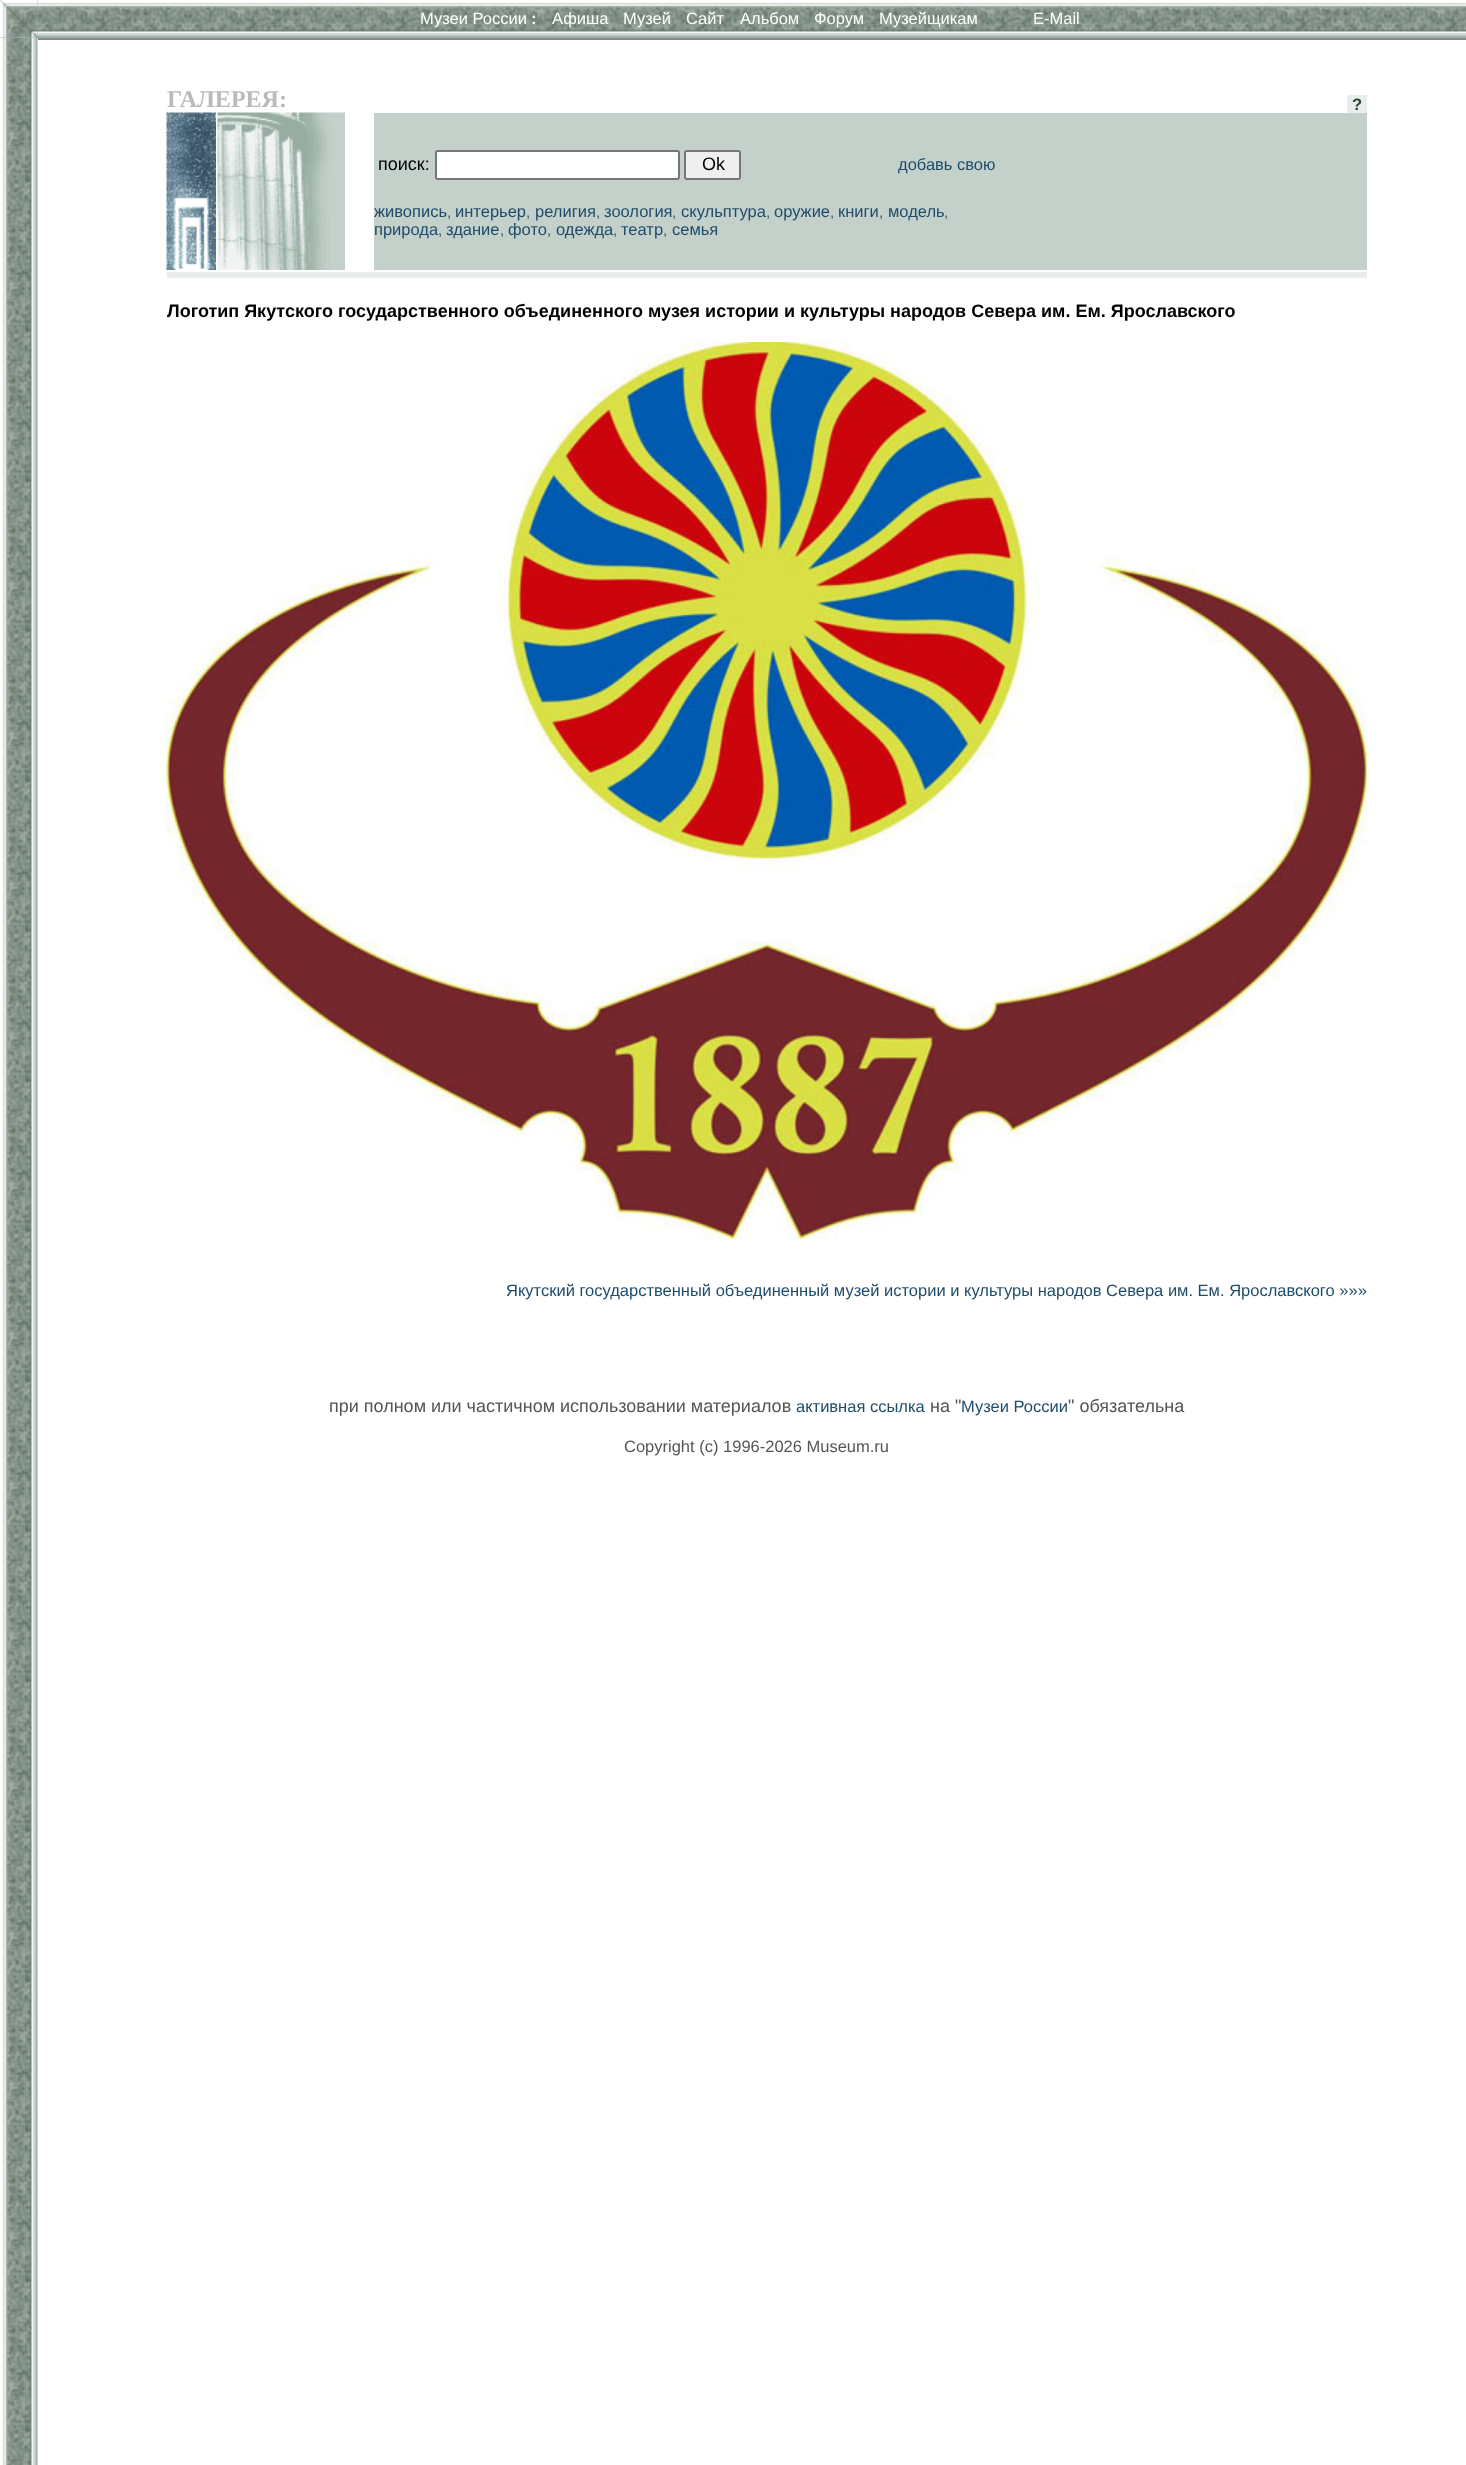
<svg xmlns="http://www.w3.org/2000/svg" width="1466" height="2465">
	<rect width="100%" height="100%" fill="#FFFFFF" />
	<image x="2" y="38" width="36" height="2427" href="assets/img1.png" />
	<rect x="0" y="0" width="1466" height="38" fill="#A2B8CB" />
	<image x="0" y="0" width="38" height="38" href="assets/img2.png" />
	<image x="37" y="0" width="1429" height="38" href="assets/img3.png" />
	<text x="420" y="24" font-family="Liberation Sans" font-size="16.5" fill="#FFFFFF">Музеи России</text>
	<text x="531" y="24" font-family="Liberation Sans" font-size="16.5" font-weight="700" fill="#FFFFFF">:</text>
	<g font-family="Liberation Sans" font-size="16.5" fill="#FFFFFF">
		<text x="552" y="24">Афиша</text>
		<text x="623" y="24">Музей</text>
		<text x="686" y="24">Сайт</text>
		<text x="740" y="24">Альбом</text>
		<text x="814" y="24">Форум</text>
		<text x="879" y="24">Музейщикам</text>
		<text x="1033" y="24">E-Mail</text>
	</g>
	<rect x="38" y="38" width="1428" height="2" fill="#888888" />
	<text x="167" y="107" font-family="Liberation Serif" font-size="24" font-weight="700" fill="#BABABA">ГАЛЕРЕЯ:</text>
	<rect x="1347" y="95" width="20" height="18" fill="#E9EDEB" />
	<text x="1352" y="110" font-family="Liberation Sans" font-size="16.5" font-weight="700" fill="#2A4931">?</text>
	<image x="166" y="112" width="50" height="158" href="assets/img4.png" />
	<image x="217" y="112" width="128" height="158" href="assets/img5.png" />
	<rect x="374" y="113" width="993" height="157" fill="#C4D0CA" />
	<text x="378" y="170" font-family="Liberation Sans" font-size="18" fill="#000000">поиск:</text>
	<rect x="436" y="151" width="243" height="28" rx="2" fill="#FFFFFF" stroke="#767676" stroke-width="2" />
	<rect x="685" y="151" width="55" height="28" rx="2" fill="#EFEFEF" stroke="#767676" stroke-width="2" />
	<text x="702" y="170" font-family="Liberation Sans" font-size="18" fill="#000000">Ok</text>
	<g font-family="Liberation Sans" font-size="16.5" fill="#1E4C6A">
		<text x="898" y="170">добавь свою</text>
		<text x="374" y="217">живопись</text>
	</g>
	<text x="447" y="217" font-family="Liberation Sans" font-size="15" fill="#39595C">,</text>
	<text x="455" y="217" font-family="Liberation Sans" font-size="16.5" fill="#1E4C6A">интерьер</text>
	<text x="526" y="217" font-family="Liberation Sans" font-size="15" fill="#39595C">,</text>
	<text x="535" y="217" font-family="Liberation Sans" font-size="16.5" fill="#1E4C6A">религия</text>
	<text x="596" y="217" font-family="Liberation Sans" font-size="15" fill="#39595C">,</text>
	<text x="604" y="217" font-family="Liberation Sans" font-size="16.5" fill="#1E4C6A">зоология</text>
	<text x="672" y="217" font-family="Liberation Sans" font-size="15" fill="#39595C">,</text>
	<text x="681" y="217" font-family="Liberation Sans" font-size="16.5" fill="#1E4C6A">скульптура</text>
	<text x="766" y="217" font-family="Liberation Sans" font-size="15" fill="#39595C">,</text>
	<text x="774" y="217" font-family="Liberation Sans" font-size="16.5" fill="#1E4C6A">оружие</text>
	<text x="830" y="217" font-family="Liberation Sans" font-size="15" fill="#39595C">,</text>
	<text x="838" y="217" font-family="Liberation Sans" font-size="16.5" fill="#1E4C6A">книги</text>
	<text x="879" y="217" font-family="Liberation Sans" font-size="15" fill="#39595C">,</text>
	<text x="888" y="217" font-family="Liberation Sans" font-size="16.5" fill="#1E4C6A">модель</text>
	<text x="944" y="217" font-family="Liberation Sans" font-size="15" fill="#39595C">,</text>
	<text x="374" y="235" font-family="Liberation Sans" font-size="16.5" fill="#1E4C6A">природа</text>
	<text x="438" y="235" font-family="Liberation Sans" font-size="15" fill="#39595C">,</text>
	<text x="446" y="235" font-family="Liberation Sans" font-size="16.5" fill="#1E4C6A">здание</text>
	<text x="500" y="235" font-family="Liberation Sans" font-size="15" fill="#39595C">,</text>
	<text x="508" y="235" font-family="Liberation Sans" font-size="16.5" fill="#1E4C6A">фото</text>
	<text x="547" y="235" font-family="Liberation Sans" font-size="15" fill="#39595C">,</text>
	<text x="556" y="235" font-family="Liberation Sans" font-size="16.5" fill="#1E4C6A">одежда</text>
	<text x="613" y="235" font-family="Liberation Sans" font-size="15" fill="#39595C">,</text>
	<text x="621" y="235" font-family="Liberation Sans" font-size="16.5" fill="#1E4C6A">театр</text>
	<text x="663" y="235" font-family="Liberation Sans" font-size="15" fill="#39595C">,</text>
	<text x="672" y="235" font-family="Liberation Sans" font-size="16.5" fill="#1E4C6A">семья</text>
	<rect x="167" y="272" width="1200" height="6" fill="#E9EDEB" />
	<text x="167" y="317" font-family="Liberation Sans" font-size="18" font-weight="700" fill="#000000">Логотип Якутского государственного объединенного музея истории и культуры народов Севера им. Ем. Ярославского</text>
	<image x="166" y="342" width="1201" height="897" href="assets/img6.png" />
	<text x="506" y="1296" font-family="Liberation Sans" font-size="16.5" fill="#1E4C6A">Якутский государственный объединенный музей истории и культуры народов Севера им. Ем. Ярославского »»»</text>
	<text x="329" y="1412" font-family="Liberation Sans" font-size="18" fill="#555555">при полном или частичном использовании материалов</text>
	<text x="796" y="1412" font-family="Liberation Sans" font-size="16.5" fill="#1E4C6A">активная ссылка</text>
	<text x="930" y="1412" font-family="Liberation Sans" font-size="18" fill="#555555">на "</text>
	<text x="961" y="1412" font-family="Liberation Sans" font-size="16.5" fill="#1E4C6A">Музеи России</text>
	<text x="1068" y="1412" font-family="Liberation Sans" font-size="18" fill="#555555">" обязательна</text>
	<text x="624" y="1452" font-family="Liberation Sans" font-size="16.5" fill="#555555">Copyright (c) 1996-2026 Museum.ru</text>
</svg>
